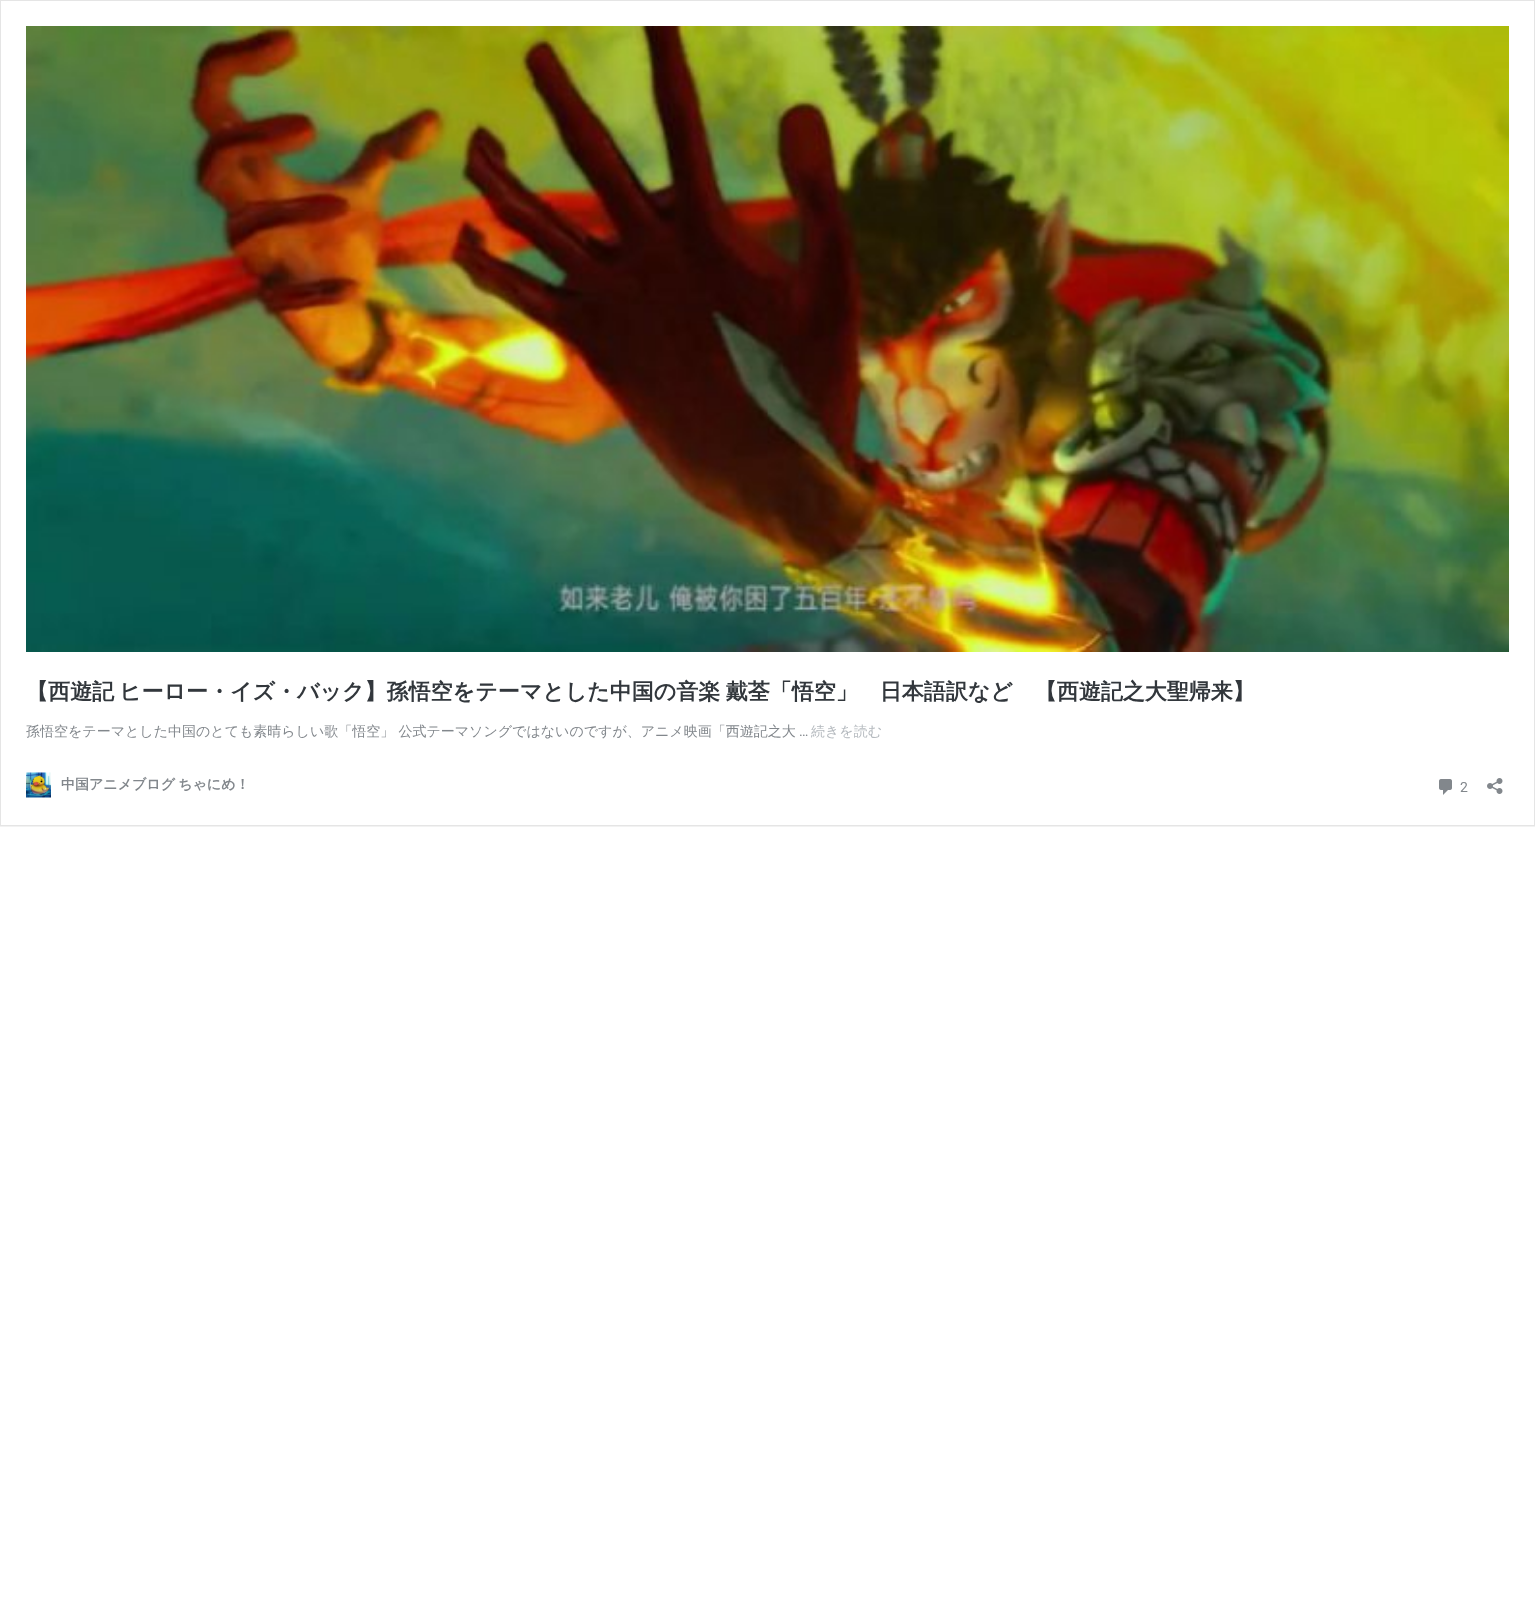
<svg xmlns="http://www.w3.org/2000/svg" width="1535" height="1604">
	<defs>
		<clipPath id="clip1"><rect x="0" y="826" width="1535" height="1" /></clipPath>
	</defs>
	<rect width="100%" height="100%" fill="#FFFFFF" />
	<g clip-path="url(#clip1)">
		<rect x="0" y="1" width="1535" height="826" fill="#000000" fill-opacity="0.05" filter="blur(0.5px)" />
	</g>
	<rect x="0.5" y="0.5" width="1534" height="825" fill="none" stroke="#E5E5E5" />
	<image x="26" y="26" width="1483" height="626" href="assets/img1.png" />
	<g font-family="WenQuanYi Zen Hei" font-size="22" font-weight="700" fill="#32373C">
		<text x="26" y="699">【西遊記</text>
		<text x="119" y="699" word-spacing="-1">ヒーロー・イズ・バック】孫悟空をテーマとした中国の音楽 戴荃「悟空」　日本語訳など　【西遊記之大聖帰来】</text>
	</g>
	<text x="26" y="736" font-family="WenQuanYi Zen Hei" font-size="14" font-weight="500" fill="#82878C">孫悟空をテーマとした中国のとても素晴らしい歌「悟空」 公式テーマソングではないのですが、アニメ映画「西遊記之大</text>
	<text x="799" y="736" font-family="Roboto" font-size="14" fill="#82878C">…</text>
	<text x="811" y="736" font-family="WenQuanYi Zen Hei" font-size="14" font-weight="500" fill="#B4B9BE">続きを読む</text>
	<image x="26" y="772" width="25" height="26" href="assets/img2.png" />
	<text x="61" y="789" word-spacing="-1" font-family="WenQuanYi Zen Hei" font-size="14" font-weight="700" fill="#82878C">中国アニメブログ ちゃにめ！</text>
	<image x="1439" y="779" width="13" height="16" href="assets/img3.png" />
	<text x="1460" y="792" font-family="Roboto" font-size="14" fill="#82878C">2</text>
	<image x="1487" y="778" width="16" height="16" href="assets/img4.png" />
</svg>
